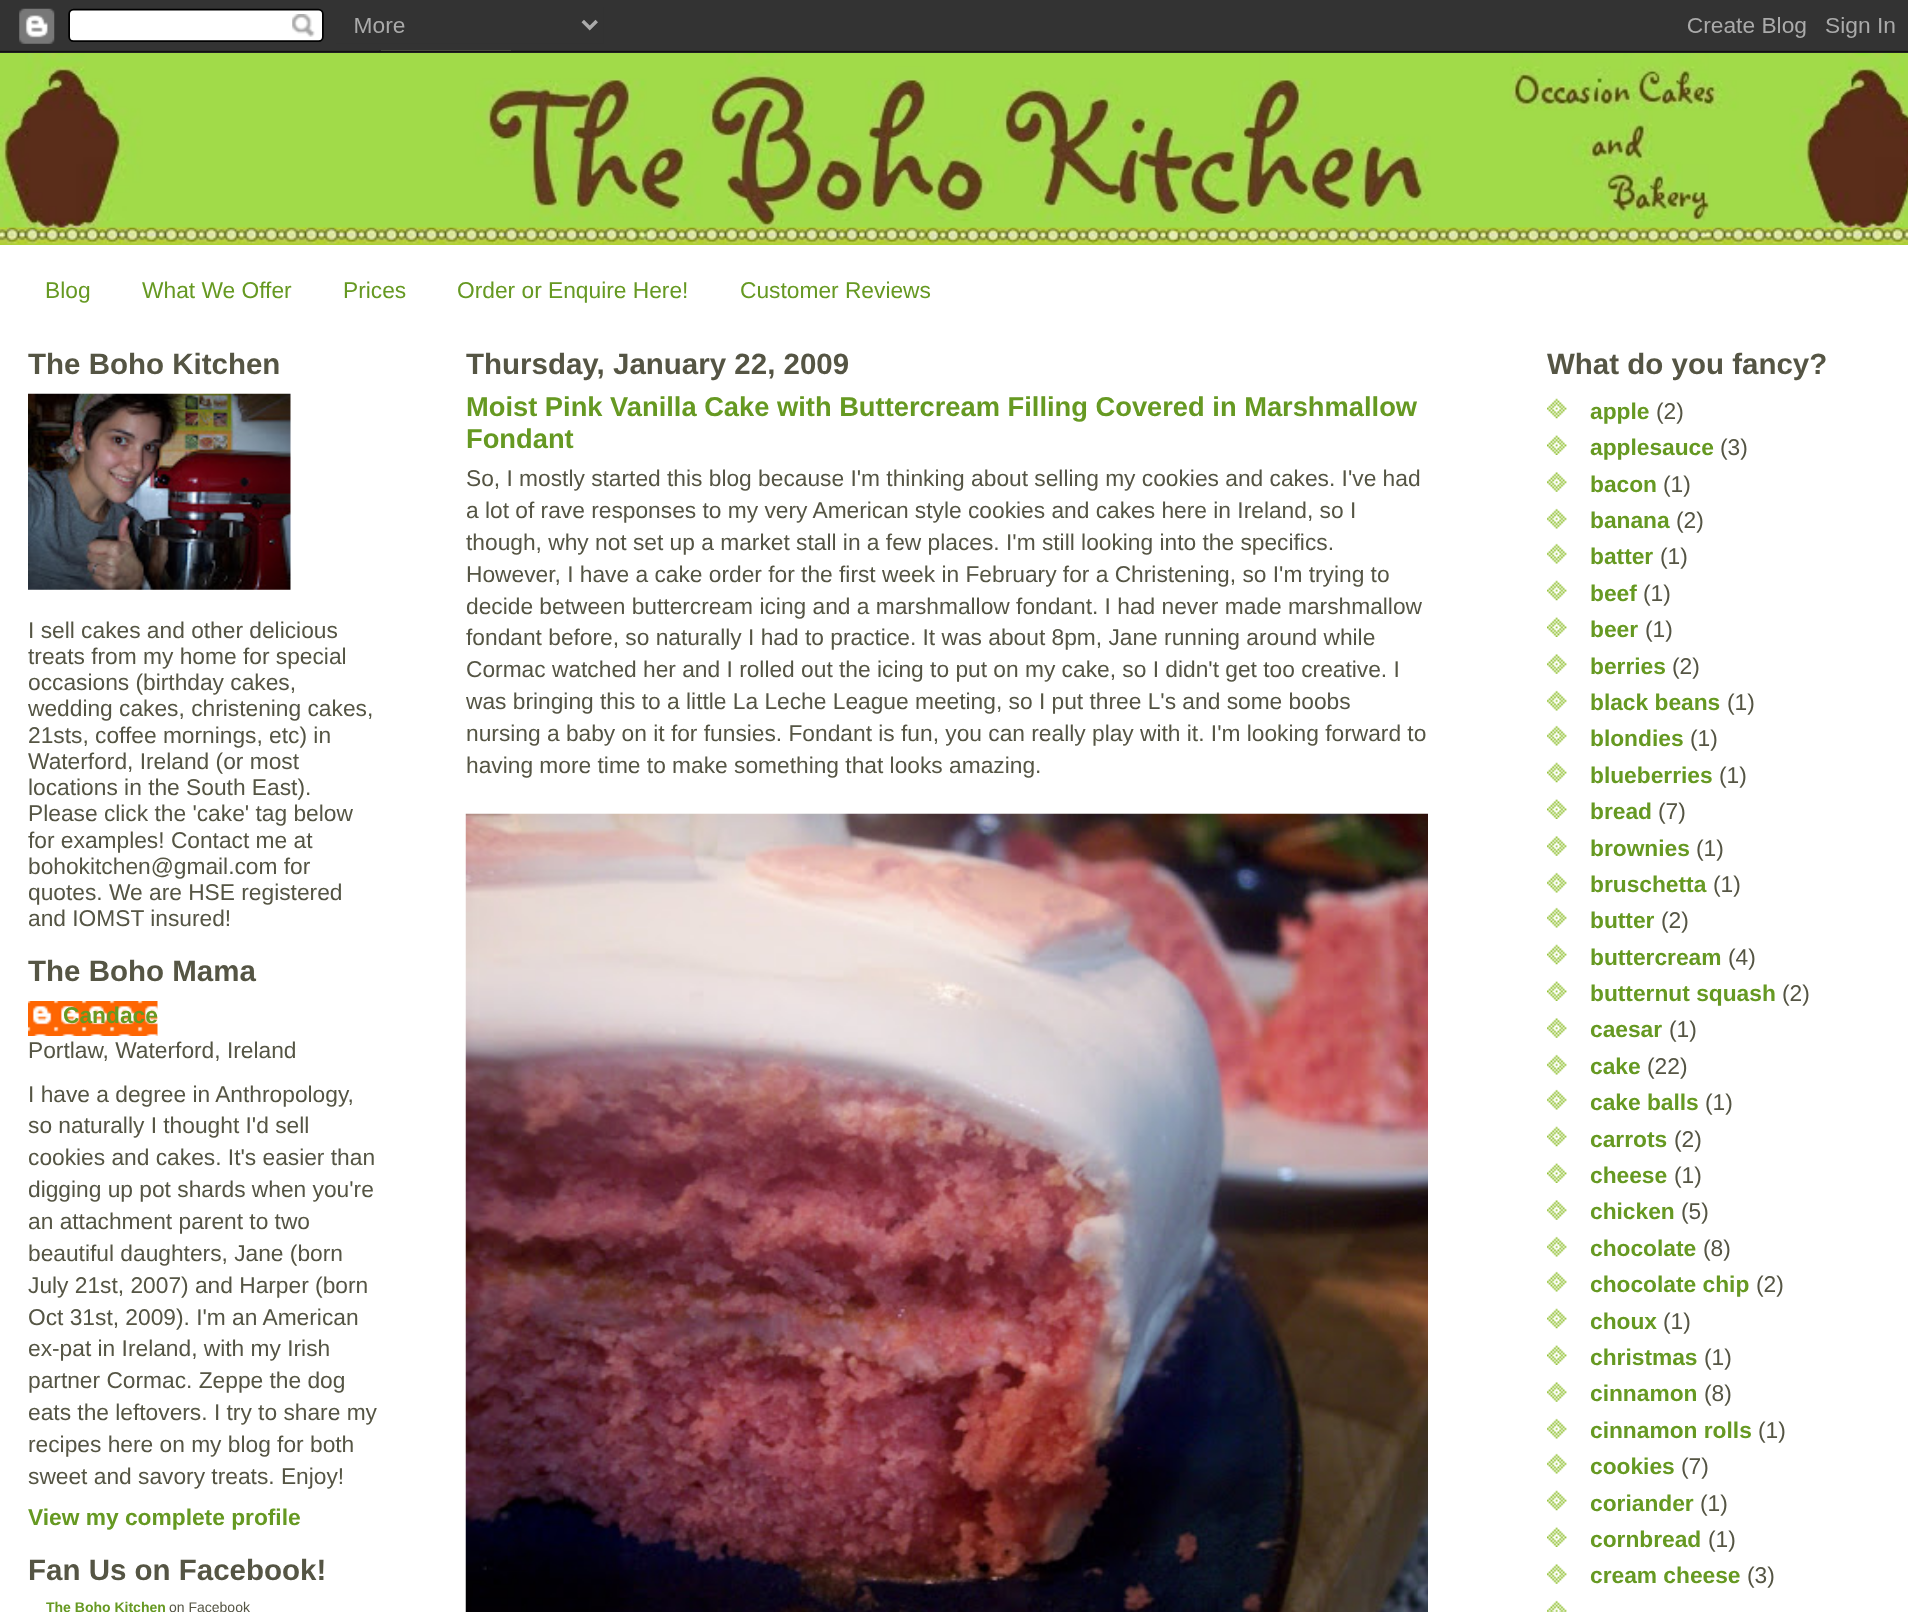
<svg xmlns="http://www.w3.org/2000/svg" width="1908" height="1612">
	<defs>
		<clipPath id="clip1"><rect x="466" y="327" width="962" height="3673" /></clipPath>
	</defs>
	<rect width="100%" height="100%" fill="#FFFFFF" />
	<image x="0" y="50" width="1908" height="1" href="assets/img1.png" />
	<image x="0" y="0" width="1908" height="53" href="assets/img2.png" />
	<image x="0" y="227" width="1908" height="18" href="assets/img3.png" />
	<image x="0" y="53" width="1908" height="175" href="assets/img4.png" />
	<g font-family="Liberation Sans" font-size="22.75" fill="#669922">
		<text x="45" y="298">Blog</text>
		<text x="142" y="298">What We Offer</text>
		<text x="343" y="298">Prices</text>
		<text x="457" y="298">Order or Enquire Here!</text>
		<text x="740" y="298">Customer Reviews</text>
	</g>
	<text x="28" y="374" font-family="Liberation Sans" font-size="29.5" font-weight="700" fill="#555544">The Boho Kitchen</text>
	<image x="28" y="393" width="263" height="197" href="assets/img5.png" />
	<g font-family="Liberation Sans" font-size="22.75" fill="#555544">
		<text x="28" y="638">I sell cakes and other delicious</text>
		<text x="28" y="664">treats from my home for special</text>
		<text x="28" y="690">occasions (birthday cakes,</text>
		<text x="28" y="716">wedding cakes, christening cakes,</text>
		<text x="28" y="743">21sts, coffee mornings, etc) in</text>
		<text x="28" y="769">Waterford, Ireland (or most</text>
		<text x="28" y="795">locations in the South East).</text>
		<text x="28" y="821">Please click the 'cake' tag below</text>
		<text x="28" y="848">for examples! Contact me at</text>
		<text x="28" y="874">bohokitchen@gmail.com for</text>
		<text x="28" y="900">quotes. We are HSE registered</text>
		<text x="28" y="926">and IOMST insured!</text>
	</g>
	<text x="28" y="981" font-family="Liberation Sans" font-size="29.5" font-weight="700" fill="#555544">The Boho Mama</text>
	<image x="28" y="1001" width="130" height="35" href="assets/img6.png" />
	<text x="63" y="1023" font-family="Liberation Sans" font-size="22.75" font-weight="700" fill="#669922">Candace</text>
	<g font-family="Liberation Sans" font-size="22.75" fill="#555544">
		<text x="28" y="1058">Portlaw, Waterford, Ireland</text>
		<text x="28" y="1102">I have a degree in Anthropology,</text>
		<text x="28" y="1133">so naturally I thought I'd sell</text>
		<text x="28" y="1165">cookies and cakes. It's easier than</text>
		<text x="28" y="1197">digging up pot shards when you're</text>
		<text x="28" y="1229">an attachment parent to two</text>
		<text x="28" y="1261">beautiful daughters, Jane (born</text>
		<text x="28" y="1293">July 21st, 2007) and Harper (born</text>
		<text x="28" y="1325">Oct 31st, 2009). I'm an American</text>
		<text x="28" y="1356">ex-pat in Ireland, with my Irish</text>
		<text x="28" y="1388">partner Cormac. Zeppe the dog</text>
		<text x="28" y="1420">eats the leftovers. I try to share my</text>
		<text x="28" y="1452">recipes here on my blog for both</text>
		<text x="28" y="1484">sweet and savory treats. Enjoy!</text>
	</g>
	<text x="28" y="1525" font-family="Liberation Sans" font-size="22.75" font-weight="700" fill="#669922">View my complete profile</text>
	<text x="28" y="1580" font-family="Liberation Sans" font-size="29.5" font-weight="700" fill="#555544">Fan Us on Facebook!</text>
	<text x="46" y="1612" font-family="Liberation Sans" font-size="14" font-weight="700" fill="#669922">The Boho Kitchen</text>
	<text x="169" y="1612" font-family="Liberation Sans" font-size="14" fill="#555544">on Facebook</text>
	<g clip-path="url(#clip1)">
		<text x="466" y="374" font-family="Liberation Sans" font-size="29.5" font-weight="700" fill="#555544">Thursday, January 22, 2009</text>
	</g>
	<g font-family="Liberation Sans" font-size="27.3" font-weight="700" fill="#669922">
		<text x="466" y="416">Moist Pink Vanilla Cake with Buttercream Filling Covered in Marshmallow</text>
		<text x="466" y="448">Fondant</text>
	</g>
	<g font-family="Liberation Sans" font-size="22.75" fill="#555544">
		<text x="466" y="486">So, I mostly started this blog because I'm thinking about selling my cookies and cakes. I've had</text>
		<text x="466" y="518">a lot of rave responses to my very American style cookies and cakes here in Ireland, so I</text>
		<text x="466" y="550">though, why not set up a market stall in a few places. I'm still looking into the specifics.</text>
		<text x="466" y="582">However, I have a cake order for the first week in February for a Christening, so I'm trying to</text>
		<text x="466" y="614">decide between buttercream icing and a marshmallow fondant. I had never made marshmallow</text>
		<text x="466" y="645">fondant before, so naturally I had to practice. It was about 8pm, Jane running around while</text>
		<text x="466" y="677">Cormac watched her and I rolled out the icing to put on my cake, so I didn't get too creative. I</text>
		<text x="466" y="709">was bringing this to a little La Leche League meeting, so I put three L's and some boobs</text>
		<text x="466" y="741">nursing a baby on it for funsies. Fondant is fun, you can really play with it. I'm looking forward to</text>
		<text x="466" y="773">having more time to make something that looks amazing.</text>
	</g>
	<image x="465" y="813" width="963" height="799" href="assets/img7.png" />
	<text x="1547" y="374" font-family="Liberation Sans" font-size="29.5" font-weight="700" fill="#555544">What do you fancy?</text>
	<image x="1547" y="398" width="20" height="21" href="assets/img8.png" />
	<text x="1590" y="419" font-family="Liberation Sans" font-size="22.75" font-weight="700" fill="#669922">apple</text>
	<text x="1656" y="419" font-family="Liberation Sans" font-size="22.75" fill="#555544">(2)</text>
	<image x="1547" y="435" width="20" height="20" href="assets/img9.png" />
	<text x="1590" y="455" font-family="Liberation Sans" font-size="22.75" font-weight="700" fill="#669922">applesauce</text>
	<text x="1720" y="455" font-family="Liberation Sans" font-size="22.75" fill="#555544">(3)</text>
	<image x="1547" y="472" width="20" height="20" href="assets/img10.png" />
	<text x="1590" y="492" font-family="Liberation Sans" font-size="22.75" font-weight="700" fill="#669922">bacon</text>
	<text x="1663" y="492" font-family="Liberation Sans" font-size="22.75" fill="#555544">(1)</text>
	<image x="1547" y="508" width="20" height="21" href="assets/img11.png" />
	<text x="1590" y="528" font-family="Liberation Sans" font-size="22.75" font-weight="700" fill="#669922">banana</text>
	<text x="1676" y="528" font-family="Liberation Sans" font-size="22.75" fill="#555544">(2)</text>
	<image x="1547" y="543" width="20" height="21" href="assets/img11.png" />
	<text x="1590" y="564" font-family="Liberation Sans" font-size="22.75" font-weight="700" fill="#669922">batter</text>
	<text x="1660" y="564" font-family="Liberation Sans" font-size="22.75" fill="#555544">(1)</text>
	<image x="1547" y="580" width="20" height="21" href="assets/img8.png" />
	<text x="1590" y="601" font-family="Liberation Sans" font-size="22.75" font-weight="700" fill="#669922">beef</text>
	<text x="1643" y="601" font-family="Liberation Sans" font-size="22.75" fill="#555544">(1)</text>
	<image x="1547" y="617" width="20" height="20" href="assets/img9.png" />
	<text x="1590" y="637" font-family="Liberation Sans" font-size="22.75" font-weight="700" fill="#669922">beer</text>
	<text x="1645" y="637" font-family="Liberation Sans" font-size="22.75" fill="#555544">(1)</text>
	<image x="1547" y="654" width="20" height="20" href="assets/img10.png" />
	<text x="1590" y="674" font-family="Liberation Sans" font-size="22.75" font-weight="700" fill="#669922">berries</text>
	<text x="1672" y="674" font-family="Liberation Sans" font-size="22.75" fill="#555544">(2)</text>
	<image x="1547" y="690" width="20" height="21" href="assets/img11.png" />
	<text x="1590" y="710" font-family="Liberation Sans" font-size="22.75" font-weight="700" fill="#669922">black beans</text>
	<text x="1727" y="710" font-family="Liberation Sans" font-size="22.75" fill="#555544">(1)</text>
	<image x="1547" y="725" width="20" height="21" href="assets/img11.png" />
	<text x="1590" y="746" font-family="Liberation Sans" font-size="22.75" font-weight="700" fill="#669922">blondies</text>
	<text x="1690" y="746" font-family="Liberation Sans" font-size="22.75" fill="#555544">(1)</text>
	<image x="1547" y="762" width="20" height="21" href="assets/img8.png" />
	<text x="1590" y="783" font-family="Liberation Sans" font-size="22.75" font-weight="700" fill="#669922">blueberries</text>
	<text x="1719" y="783" font-family="Liberation Sans" font-size="22.75" fill="#555544">(1)</text>
	<image x="1547" y="799" width="20" height="20" href="assets/img9.png" />
	<text x="1590" y="819" font-family="Liberation Sans" font-size="22.75" font-weight="700" fill="#669922">bread</text>
	<text x="1658" y="819" font-family="Liberation Sans" font-size="22.75" fill="#555544">(7)</text>
	<image x="1547" y="836" width="20" height="20" href="assets/img10.png" />
	<text x="1590" y="856" font-family="Liberation Sans" font-size="22.75" font-weight="700" fill="#669922">brownies</text>
	<text x="1696" y="856" font-family="Liberation Sans" font-size="22.75" fill="#555544">(1)</text>
	<image x="1547" y="872" width="20" height="21" href="assets/img11.png" />
	<text x="1590" y="892" font-family="Liberation Sans" font-size="22.75" font-weight="700" fill="#669922">bruschetta</text>
	<text x="1713" y="892" font-family="Liberation Sans" font-size="22.75" fill="#555544">(1)</text>
	<image x="1547" y="907" width="20" height="21" href="assets/img11.png" />
	<text x="1590" y="928" font-family="Liberation Sans" font-size="22.75" font-weight="700" fill="#669922">butter</text>
	<text x="1661" y="928" font-family="Liberation Sans" font-size="22.75" fill="#555544">(2)</text>
	<image x="1547" y="944" width="20" height="21" href="assets/img8.png" />
	<text x="1590" y="965" font-family="Liberation Sans" font-size="22.75" font-weight="700" fill="#669922">buttercream</text>
	<text x="1728" y="965" font-family="Liberation Sans" font-size="22.75" fill="#555544">(4)</text>
	<image x="1547" y="981" width="20" height="20" href="assets/img9.png" />
	<text x="1590" y="1001" font-family="Liberation Sans" font-size="22.75" font-weight="700" fill="#669922">butternut squash</text>
	<text x="1782" y="1001" font-family="Liberation Sans" font-size="22.75" fill="#555544">(2)</text>
	<image x="1547" y="1018" width="20" height="20" href="assets/img10.png" />
	<text x="1590" y="1037" font-family="Liberation Sans" font-size="22.75" font-weight="700" fill="#669922">caesar</text>
	<text x="1669" y="1037" font-family="Liberation Sans" font-size="22.75" fill="#555544">(1)</text>
	<image x="1547" y="1054" width="20" height="21" href="assets/img11.png" />
	<text x="1590" y="1074" font-family="Liberation Sans" font-size="22.75" font-weight="700" fill="#669922">cake</text>
	<text x="1647" y="1074" font-family="Liberation Sans" font-size="22.75" fill="#555544">(22)</text>
	<image x="1547" y="1089" width="20" height="21" href="assets/img11.png" />
	<text x="1590" y="1110" font-family="Liberation Sans" font-size="22.75" font-weight="700" fill="#669922">cake balls</text>
	<text x="1705" y="1110" font-family="Liberation Sans" font-size="22.75" fill="#555544">(1)</text>
	<image x="1547" y="1126" width="20" height="21" href="assets/img8.png" />
	<text x="1590" y="1147" font-family="Liberation Sans" font-size="22.75" font-weight="700" fill="#669922">carrots</text>
	<text x="1674" y="1147" font-family="Liberation Sans" font-size="22.75" fill="#555544">(2)</text>
	<image x="1547" y="1163" width="20" height="20" href="assets/img9.png" />
	<text x="1590" y="1183" font-family="Liberation Sans" font-size="22.75" font-weight="700" fill="#669922">cheese</text>
	<text x="1674" y="1183" font-family="Liberation Sans" font-size="22.75" fill="#555544">(1)</text>
	<image x="1547" y="1200" width="20" height="20" href="assets/img10.png" />
	<text x="1590" y="1219" font-family="Liberation Sans" font-size="22.75" font-weight="700" fill="#669922">chicken</text>
	<text x="1681" y="1219" font-family="Liberation Sans" font-size="22.75" fill="#555544">(5)</text>
	<image x="1547" y="1236" width="20" height="21" href="assets/img11.png" />
	<text x="1590" y="1256" font-family="Liberation Sans" font-size="22.75" font-weight="700" fill="#669922">chocolate</text>
	<text x="1703" y="1256" font-family="Liberation Sans" font-size="22.75" fill="#555544">(8)</text>
	<image x="1547" y="1271" width="20" height="21" href="assets/img11.png" />
	<text x="1590" y="1292" font-family="Liberation Sans" font-size="22.75" font-weight="700" fill="#669922">chocolate chip</text>
	<text x="1756" y="1292" font-family="Liberation Sans" font-size="22.75" fill="#555544">(2)</text>
	<image x="1547" y="1308" width="20" height="21" href="assets/img8.png" />
	<text x="1590" y="1329" font-family="Liberation Sans" font-size="22.75" font-weight="700" fill="#669922">choux</text>
	<text x="1663" y="1329" font-family="Liberation Sans" font-size="22.75" fill="#555544">(1)</text>
	<image x="1547" y="1345" width="20" height="20" href="assets/img9.png" />
	<text x="1590" y="1365" font-family="Liberation Sans" font-size="22.75" font-weight="700" fill="#669922">christmas</text>
	<text x="1704" y="1365" font-family="Liberation Sans" font-size="22.75" fill="#555544">(1)</text>
	<image x="1547" y="1382" width="20" height="20" href="assets/img10.png" />
	<text x="1590" y="1401" font-family="Liberation Sans" font-size="22.75" font-weight="700" fill="#669922">cinnamon</text>
	<text x="1704" y="1401" font-family="Liberation Sans" font-size="22.75" fill="#555544">(8)</text>
	<image x="1547" y="1418" width="20" height="21" href="assets/img11.png" />
	<text x="1590" y="1438" font-family="Liberation Sans" font-size="22.75" font-weight="700" fill="#669922">cinnamon rolls</text>
	<text x="1758" y="1438" font-family="Liberation Sans" font-size="22.75" fill="#555544">(1)</text>
	<image x="1547" y="1453" width="20" height="21" href="assets/img11.png" />
	<text x="1590" y="1474" font-family="Liberation Sans" font-size="22.75" font-weight="700" fill="#669922">cookies</text>
	<text x="1681" y="1474" font-family="Liberation Sans" font-size="22.75" fill="#555544">(7)</text>
	<image x="1547" y="1490" width="20" height="21" href="assets/img8.png" />
	<text x="1590" y="1511" font-family="Liberation Sans" font-size="22.75" font-weight="700" fill="#669922">coriander</text>
	<text x="1700" y="1511" font-family="Liberation Sans" font-size="22.75" fill="#555544">(1)</text>
	<image x="1547" y="1527" width="20" height="20" href="assets/img9.png" />
	<text x="1590" y="1547" font-family="Liberation Sans" font-size="22.75" font-weight="700" fill="#669922">cornbread</text>
	<text x="1708" y="1547" font-family="Liberation Sans" font-size="22.75" fill="#555544">(1)</text>
	<image x="1547" y="1564" width="20" height="20" href="assets/img10.png" />
	<text x="1590" y="1583" font-family="Liberation Sans" font-size="22.75" font-weight="700" fill="#669922">cream cheese</text>
	<text x="1747" y="1583" font-family="Liberation Sans" font-size="22.75" fill="#555544">(3)</text>
	<image x="1547" y="1600" width="20" height="12" href="assets/img12.png" />
</svg>
